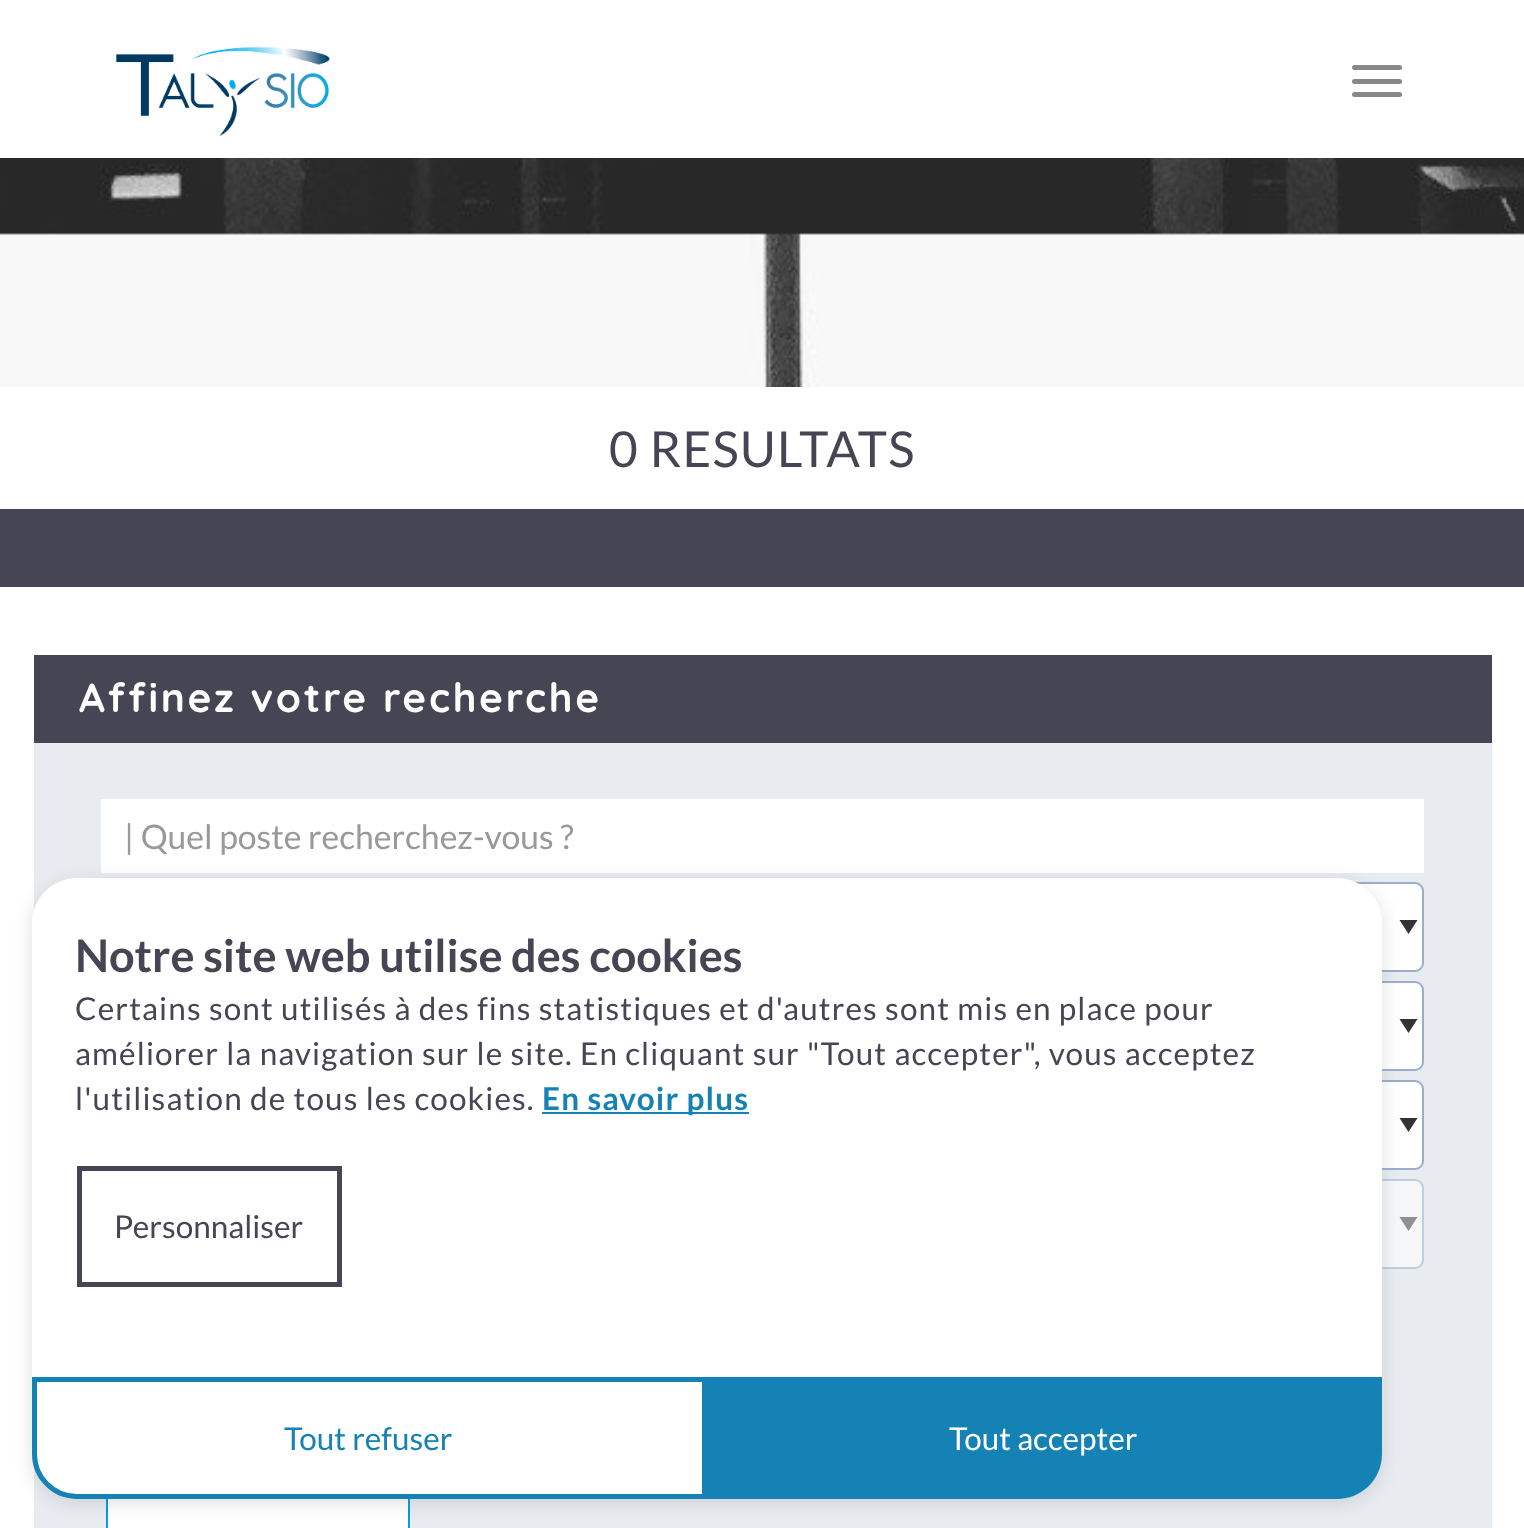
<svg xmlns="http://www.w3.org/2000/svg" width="1524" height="1528">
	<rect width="100%" height="100%" fill="#FFFFFF" />
	<image x="115" y="46" width="215" height="91" href="assets/img1.png" />
	<rect x="1352" y="65" width="50" height="5" rx="2.5" fill="#888888" />
	<rect x="1352" y="79" width="50" height="5" rx="2.5" fill="#888888" />
	<rect x="1352" y="92" width="50" height="5" rx="2.5" fill="#888888" />
	<image x="0" y="158" width="1524" height="229" href="assets/img2.png" />
	<text x="609" y="467" font-family="Lato" font-size="49.5" letter-spacing="1.12" fill="#464553">0 RESULTATS</text>
	<rect x="0" y="509" width="1524" height="78" fill="#464553" />
	<rect x="34" y="655" width="1458" height="88" fill="#464553" />
	<text x="79" y="712" font-family="Quicksand" font-size="40.5" font-weight="700" letter-spacing="2.7" fill="#FFFFFF">Affinez votre recherche</text>
	<rect x="34" y="743" width="1458" height="785" fill="#E8ECF1" />
	<rect x="101" y="799" width="1323" height="74" fill="#FFFFFF" />
	<rect x="101" y="797" width="1323" height="2" fill="#ECECEC" />
	<text x="124" y="849" font-family="Lato" font-size="33.75" fill="#999999">| Quel poste recherchez-vous ?</text>
	<rect x="102" y="883" width="1321" height="88" rx="8" fill="#FFFFFF" stroke="#9AAECC" stroke-width="2" />
	<path d="M1408.5 934L1399.5 920H1417.5Z" fill="#333333" />
	<rect x="102" y="982" width="1321" height="88" rx="8" fill="#FFFFFF" stroke="#9AAECC" stroke-width="2" />
	<path d="M1408.5 1033L1399.5 1019H1417.5Z" fill="#333333" />
	<rect x="102" y="1081" width="1321" height="88" rx="8" fill="#FFFFFF" stroke="#9AAECC" stroke-width="2" />
	<path d="M1408.5 1132L1399.5 1118H1417.5Z" fill="#333333" />
	<rect x="102" y="1180" width="1321" height="88" rx="8" fill="#F4F6F8" stroke="#C1CDDF" stroke-width="2" />
	<path d="M1408.5 1231L1399.5 1217H1417.5Z" fill="#8E9092" />
	<rect x="108" y="1499" width="300" height="29" fill="#FFFFFF" />
	<rect x="107" y="1495" width="302" height="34" fill="none" stroke="#009DE0" stroke-width="2" />
	<rect x="32" y="882" width="1350" height="621" rx="45" fill="#636363" fill-opacity="0.2" filter="blur(9px)" />
	<rect x="32" y="878" width="1350" height="621" rx="45" fill="#FFFFFF" />
	<text x="75" y="972" font-family="Lato" font-size="45" font-weight="700" fill="#464553">Notre site web utilise des cookies</text>
	<g font-family="Lato" font-size="31.5" letter-spacing="1.12" fill="#464553">
		<text x="75" y="1020">Certains sont utilisés à des fins statistiques et d'autres sont mis en place pour</text>
		<text x="75" y="1065">améliorer la navigation sur le site. En cliquant sur "Tout accepter", vous acceptez</text>
		<text x="75" y="1110">l'utilisation de tous les cookies.</text>
	</g>
	<rect x="542" y="1112" width="207" height="2" fill="#1582B5" />
	<text x="542" y="1110" font-family="Lato" font-size="31.5" font-weight="700" letter-spacing="1.12" fill="#1582B5">En savoir plus</text>
	<rect x="79.5" y="1168.5" width="260" height="116" fill="none" stroke="#464553" stroke-width="5" />
	<text x="114" y="1238" font-family="Lato" font-size="31.5" fill="#464553">Personnaliser</text>
	<path d="M34.5 1379.5H704.5V1496.5H77C53.5 1496.5 34.5 1477.5 34.5 1454Z" fill="none" stroke="#1582B5" stroke-width="5" />
	<text x="284" y="1450" font-family="Lato" font-size="31.5" fill="#1582B5">Tout refuser</text>
	<path d="M707 1377H1382V1454C1382 1479 1362 1499 1337 1499H707Z" fill="#1582B5" />
	<text x="949" y="1450" font-family="Lato" font-size="31.5" fill="#FFFFFF">Tout accepter</text>
</svg>
